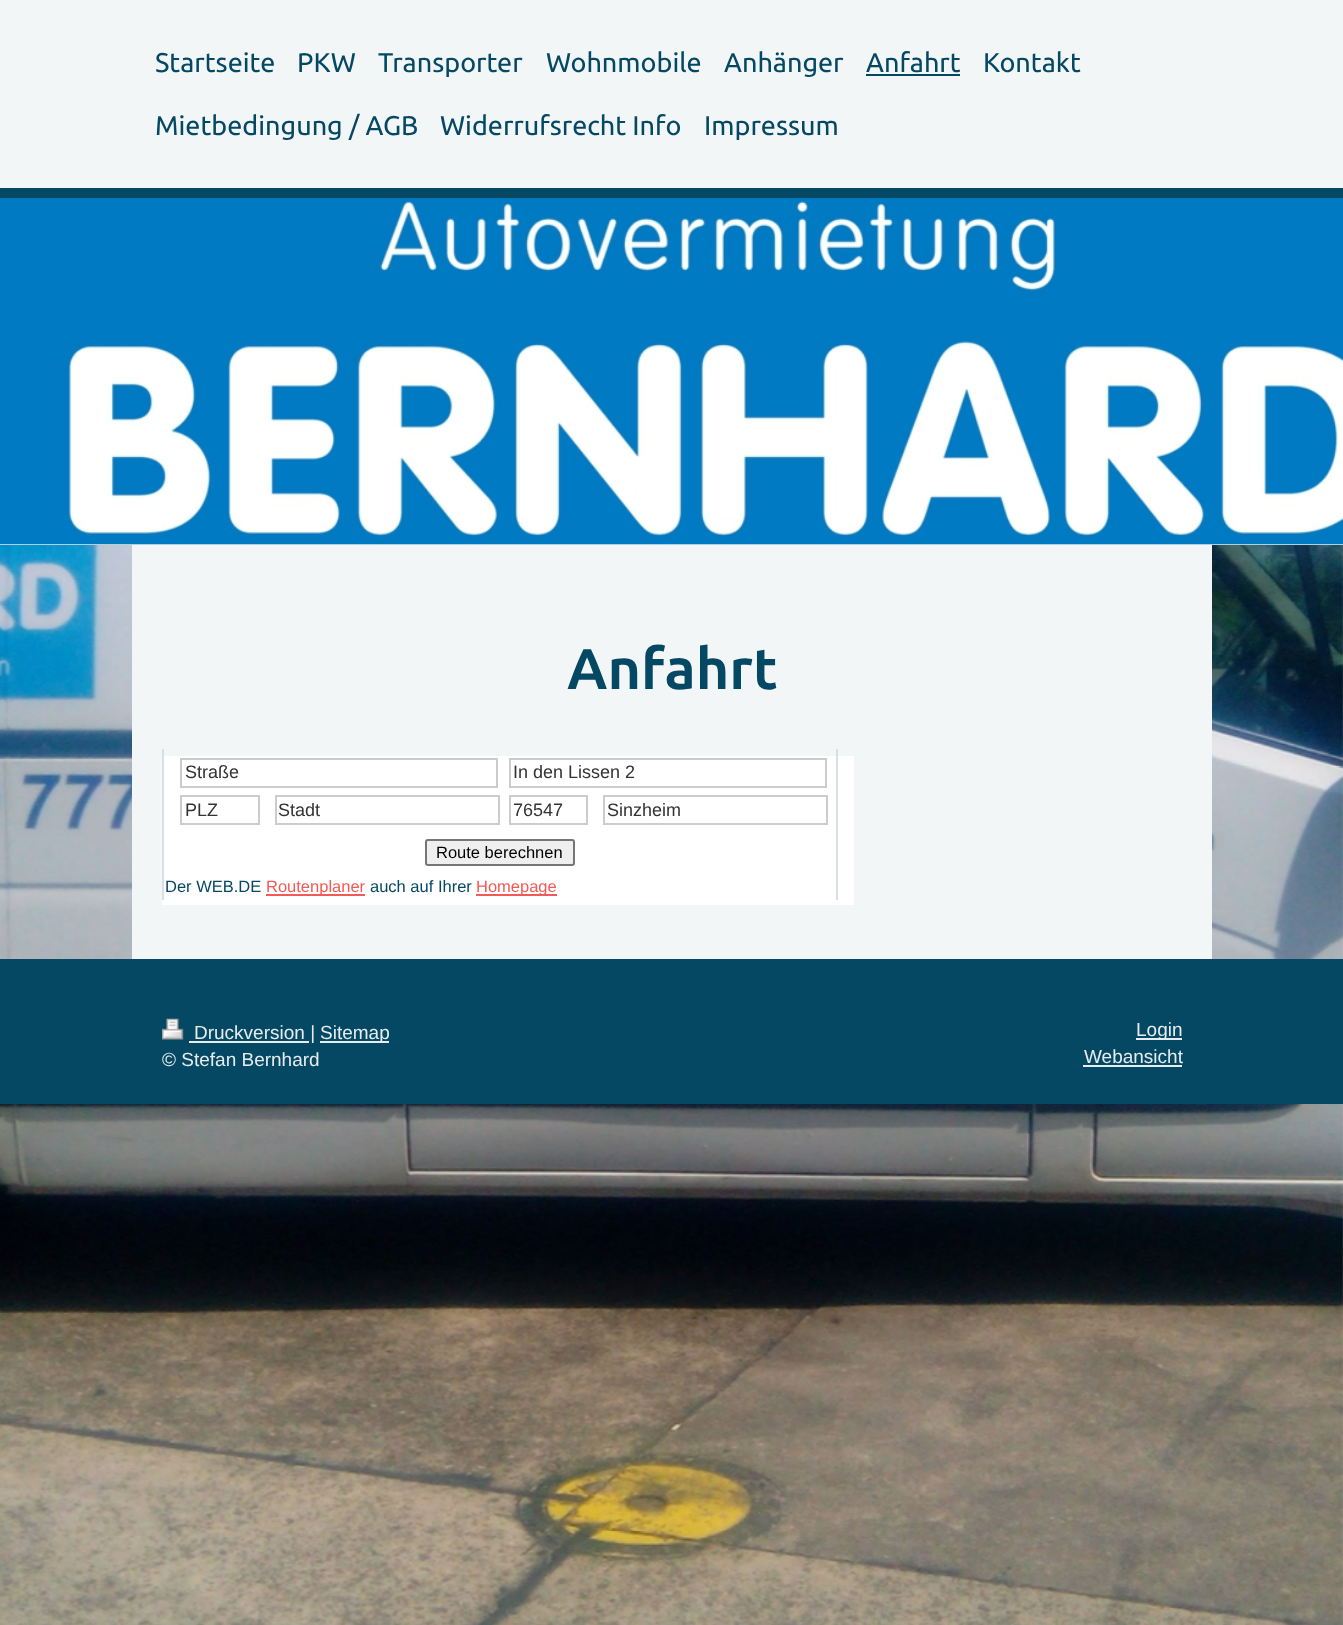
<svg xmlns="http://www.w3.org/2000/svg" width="1343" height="1625">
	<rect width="100%" height="100%" fill="#FFFFFF" />
	<image x="0" y="545" width="1343" height="1080" href="assets/img1.png" />
	<rect x="0" y="0" width="1343" height="188" fill="#F2F6F7" />
	<rect x="0" y="188" width="1343" height="10" fill="#054863" />
	<g font-family="Ubuntu" font-size="27" fill="#054863">
		<text x="155" y="72">Startseite</text>
		<text x="297" y="72">PKW</text>
		<text x="378" y="72">Transporter</text>
		<text x="546" y="72">Wohnmobile</text>
		<text x="724" y="72">Anhänger</text>
		<text x="866" y="72">Anfahrt</text>
	</g>
	<rect x="866" y="74" width="94" height="2" fill="#054863" />
	<g font-family="Ubuntu" font-size="27" fill="#054863">
		<text x="983" y="72">Kontakt</text>
		<text x="155" y="135">Mietbedingung / AGB</text>
		<text x="440" y="135">Widerrufsrecht Info</text>
		<text x="704" y="135">Impressum</text>
	</g>
	<rect x="0" y="544" width="1343" height="1" fill="#EEEEEE" />
	<image x="0" y="198" width="1343" height="347" href="assets/img2.png" />
	<rect x="132" y="545" width="1080" height="414" fill="#F2F6F7" />
	<text x="567" y="689" font-family="Ubuntu" font-size="57.5" font-weight="700" fill="#054863">Anfahrt</text>
	<rect x="162" y="756" width="692" height="149" fill="#FFFFFF" />
	<rect x="836" y="749" width="2" height="151" fill="#D8DFE5" />
	<rect x="162" y="749" width="2" height="151" fill="#D8DFE5" />
	<rect x="181" y="759" width="316" height="28" fill="none" stroke="#CCCCCC" stroke-width="2" />
	<text x="185" y="778" font-family="Liberation Sans" font-size="18" fill="#333333">Straße</text>
	<rect x="181" y="796" width="78" height="28" fill="none" stroke="#CCCCCC" stroke-width="2" />
	<text x="185" y="816" font-family="Liberation Sans" font-size="18" fill="#333333">PLZ</text>
	<rect x="276" y="796" width="223" height="28" fill="none" stroke="#CCCCCC" stroke-width="2" />
	<text x="278" y="816" font-family="Liberation Sans" font-size="18" fill="#333333">Stadt</text>
	<rect x="510" y="759" width="316" height="28" fill="none" stroke="#CCCCCC" stroke-width="2" />
	<text x="513" y="778" font-family="Liberation Sans" font-size="18" fill="#333333">In den Lissen 2</text>
	<rect x="510" y="796" width="77" height="28" fill="none" stroke="#CCCCCC" stroke-width="2" />
	<text x="513" y="816" font-family="Liberation Sans" font-size="18" fill="#333333">76547</text>
	<rect x="604" y="796" width="223" height="28" fill="none" stroke="#CCCCCC" stroke-width="2" />
	<text x="607" y="816" font-family="Liberation Sans" font-size="18" fill="#333333">Sinzheim</text>
	<rect x="426" y="840" width="148" height="25" rx="2" fill="#EFEFEF" stroke="#767676" stroke-width="2" />
	<text x="436" y="858" font-family="Liberation Sans" font-size="16.5" fill="#000000">Route berechnen</text>
	<text x="165" y="892" font-family="Liberation Sans" font-size="16.5" fill="#054863">Der WEB.DE</text>
	<rect x="266" y="894" width="99" height="2" fill="#F25A57" />
	<text x="266" y="892" font-family="Liberation Sans" font-size="16.5" fill="#F25A57">Routenplaner</text>
	<text x="370" y="892" font-family="Liberation Sans" font-size="16.5" fill="#054863">auch auf Ihrer</text>
	<rect x="476" y="894" width="81" height="2" fill="#F25A57" />
	<text x="476" y="892" font-family="Liberation Sans" font-size="16.5" fill="#F25A57">Homepage</text>
	<rect x="0" y="959" width="1343" height="145" fill="#054863" />
	<image x="162" y="1018" width="22" height="22" href="assets/img3.png" />
	<rect x="189" y="1041" width="120" height="2" fill="#E6EDEF" />
	<text x="194" y="1039" font-family="Liberation Sans" font-size="19" fill="#E6EDEF">Druckversion |</text>
	<rect x="320" y="1041" width="69" height="2" fill="#E6EDEF" />
	<g font-family="Liberation Sans" font-size="19" fill="#E6EDEF">
		<text x="320" y="1039">Sitemap</text>
		<text x="162" y="1066">© Stefan Bernhard</text>
	</g>
	<rect x="1136" y="1038" width="46" height="2" fill="#E6EDEF" />
	<g font-family="Liberation Sans" font-size="19" fill="#E6EDEF">
		<text x="1136" y="1036">Login</text>
		<text x="1084" y="1063">Webansicht</text>
	</g>
	<rect x="1083" y="1065" width="99" height="2" fill="#E6EDEF" />
</svg>
